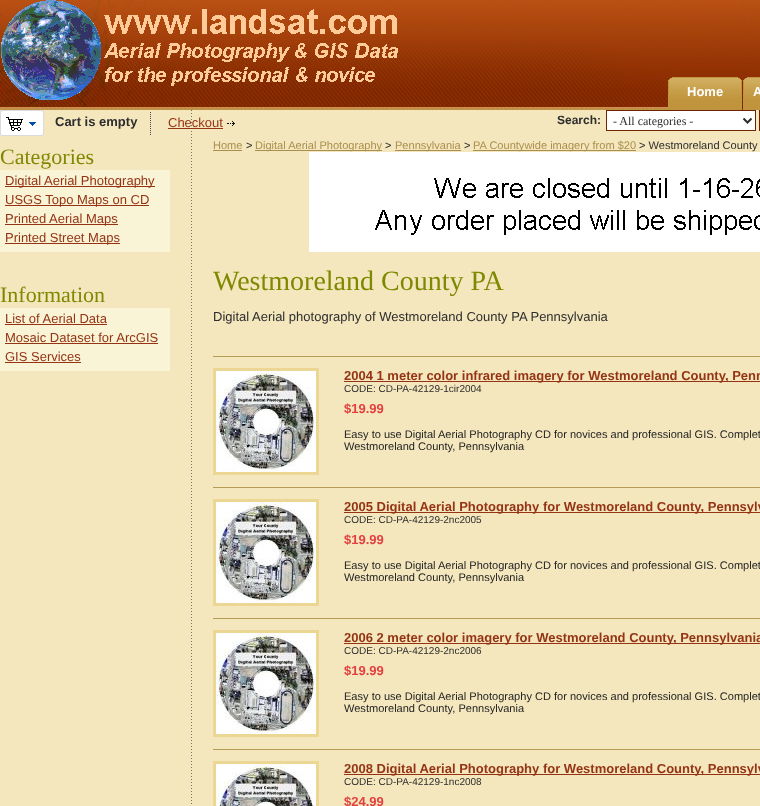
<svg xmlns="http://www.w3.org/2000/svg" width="760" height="806">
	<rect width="100%" height="100%" fill="#F4E7BD" />
	<image x="0" y="107" width="760" height="3" href="assets/img1.png" />
	<image x="0" y="0" width="760" height="107" href="assets/img2.png" />
	<image x="1" y="0" width="397" height="100" href="assets/img3.png" />
	<image x="668" y="77" width="5" height="33" href="assets/img4.png" />
	<image x="737" y="77" width="5" height="32" href="assets/img5.png" />
	<image x="673" y="77" width="64" height="32" href="assets/img6.png" />
	<text x="687" y="96" font-family="Liberation Sans" font-size="13" font-weight="700" fill="#FFFFFF">Home</text>
	<image x="742" y="77" width="6" height="33" href="assets/img7.png" />
	<image x="748" y="77" width="12" height="32" href="assets/img8.png" />
	<text x="753" y="96" font-family="Liberation Sans" font-size="13" font-weight="700" fill="#FFFFFF">A</text>
	<image x="150" y="112" width="1" height="23" href="assets/img9.png" />
	<image x="0" y="110" width="44" height="26" href="assets/img10.png" />
	<text x="55" y="126" font-family="Liberation Sans" font-size="13" font-weight="700" fill="#2D2D2D">Cart is empty</text>
	<image x="191" y="110" width="1" height="696" href="assets/img12.png" />
	<text x="168" y="127" font-family="Liberation Sans" font-size="13" fill="#943415">Checkout</text>
	<rect x="168" y="128" width="55" height="1" fill="#943415" />
	<image x="227" y="121" width="8" height="5" href="assets/img11.png" />
	<text x="557" y="124" font-family="Liberation Sans" font-size="12" font-weight="700" fill="#2D2D2D">Search:</text>
	<rect x="606.5" y="110.5" width="149" height="20" fill="#FFFFFF" stroke="#702300" />
	<path d="M743.5 118.5L747.5 122.5L751.5 118.5" fill="none" stroke="#2D2D2D" stroke-width="2" />
	<text x="613" y="125" font-family="Liberation Serif" font-size="12" fill="#2D2D2D">- All categories -</text>
	<rect x="759.5" y="110.5" width="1" height="20" fill="none" stroke="#702300" />
	<text x="0" y="164" font-family="Liberation Serif" font-size="22" fill="#7E8901">Categories</text>
	<rect x="0" y="170" width="170" height="82" fill="#F9F4D6" />
	<rect x="5" y="186" width="150" height="1" fill="#943415" />
	<text x="5" y="185" font-family="Liberation Sans" font-size="13" fill="#943415">Digital Aerial Photography</text>
	<rect x="5" y="205" width="144" height="1" fill="#943415" />
	<text x="5" y="204" font-family="Liberation Sans" font-size="13" fill="#943415">USGS Topo Maps on CD</text>
	<rect x="5" y="224" width="113" height="1" fill="#943415" />
	<text x="5" y="223" font-family="Liberation Sans" font-size="13" fill="#943415">Printed Aerial Maps</text>
	<rect x="5" y="243" width="115" height="1" fill="#943415" />
	<text x="5" y="242" font-family="Liberation Sans" font-size="13" fill="#943415">Printed Street Maps</text>
	<text x="0" y="302" font-family="Liberation Serif" font-size="22" fill="#7E8901">Information</text>
	<rect x="0" y="308" width="170" height="63" fill="#F9F4D6" />
	<text x="5" y="323" font-family="Liberation Sans" font-size="13" fill="#943415">List of Aerial Data</text>
	<rect x="5" y="324" width="102" height="1" fill="#943415" />
	<text x="5" y="342" font-family="Liberation Sans" font-size="13" fill="#943415">Mosaic Dataset for ArcGIS</text>
	<rect x="5" y="343" width="153" height="1" fill="#943415" />
	<text x="5" y="361" font-family="Liberation Sans" font-size="13" fill="#943415">GIS Services</text>
	<rect x="5" y="362" width="76" height="1" fill="#943415" />
	<text x="213" y="149" font-family="Liberation Sans" font-size="11.05" fill="#AB8E4E">Home</text>
	<rect x="213" y="150" width="29" height="1" fill="#AB8E4E" />
	<text x="246" y="149" font-family="Liberation Sans" font-size="11.05" fill="#2D2D2D">&gt;</text>
	<rect x="255" y="150" width="127" height="1" fill="#AB8E4E" />
	<text x="255" y="149" font-family="Liberation Sans" font-size="11.05" fill="#AB8E4E">Digital Aerial Photography</text>
	<text x="385" y="149" font-family="Liberation Sans" font-size="11.05" fill="#2D2D2D">&gt;</text>
	<rect x="395" y="150" width="66" height="1" fill="#AB8E4E" />
	<text x="395" y="149" font-family="Liberation Sans" font-size="11.05" fill="#AB8E4E">Pennsylvania</text>
	<text x="464" y="149" font-family="Liberation Sans" font-size="11.05" fill="#2D2D2D">&gt;</text>
	<rect x="473" y="150" width="163" height="1" fill="#AB8E4E" />
	<text x="473" y="149" font-family="Liberation Sans" font-size="11.05" fill="#AB8E4E">PA Countywide imagery from $20</text>
	<text x="639" y="149" font-family="Liberation Sans" font-size="11.05" fill="#2D2D2D">&gt; Westmoreland County</text>
	<image x="309" y="152" width="451" height="100" href="assets/img13.png" />
	<text x="213" y="290" font-family="Liberation Serif" font-size="28" fill="#7E8901">Westmoreland County PA</text>
	<text x="213" y="321" font-family="Liberation Sans" font-size="13" fill="#2D2D2D">Digital Aerial photography of Westmoreland County PA Pennsylvania</text>
	<rect x="213" y="356" width="547" height="1" fill="#B79C56" />
	<rect x="214.5" y="369.5" width="103" height="104" fill="none" stroke="#EBD693" stroke-width="3" />
	<image x="216" y="371" width="100" height="101" href="assets/img14.png" />
	<rect x="344" y="381" width="416" height="1" fill="#943415" />
	<text x="344" y="380" font-family="Liberation Sans" font-size="13" font-weight="700" fill="#943415">2004 1 meter color infrared imagery for Westmoreland County, Penn</text>
	<text x="344" y="392" font-family="Liberation Sans" font-size="10" fill="#2D2D2D">CODE: CD-PA-42129-1cir2004</text>
	<text x="344" y="413" font-family="Liberation Sans" font-size="13" font-weight="700" fill="#E33F3F">$19.99</text>
	<g font-family="Liberation Sans" font-size="11.05" fill="#232323">
		<text x="344" y="438">Easy to use Digital Aerial Photography CD for novices and professional GIS. Complet</text>
		<text x="344" y="450">Westmoreland County, Pennsylvania</text>
	</g>
	<rect x="213" y="487" width="547" height="1" fill="#B79C56" />
	<rect x="214.5" y="500.5" width="103" height="104" fill="none" stroke="#EBD693" stroke-width="3" />
	<image x="216" y="502" width="100" height="101" href="assets/img14.png" />
	<rect x="344" y="512" width="416" height="1" fill="#943415" />
	<text x="344" y="511" font-family="Liberation Sans" font-size="13" font-weight="700" fill="#943415">2005 Digital Aerial Photography for Westmoreland County, Pennsylv</text>
	<text x="344" y="523" font-family="Liberation Sans" font-size="10" fill="#2D2D2D">CODE: CD-PA-42129-2nc2005</text>
	<text x="344" y="544" font-family="Liberation Sans" font-size="13" font-weight="700" fill="#E33F3F">$19.99</text>
	<g font-family="Liberation Sans" font-size="11.05" fill="#232323">
		<text x="344" y="569">Easy to use Digital Aerial Photography CD for novices and professional GIS. Complet</text>
		<text x="344" y="581">Westmoreland County, Pennsylvania</text>
	</g>
	<rect x="213" y="618" width="547" height="1" fill="#B79C56" />
	<rect x="214.5" y="631.5" width="103" height="104" fill="none" stroke="#EBD693" stroke-width="3" />
	<image x="216" y="633" width="100" height="101" href="assets/img14.png" />
	<rect x="344" y="643" width="416" height="1" fill="#943415" />
	<text x="344" y="642" font-family="Liberation Sans" font-size="13" font-weight="700" fill="#943415">2006 2 meter color imagery for Westmoreland County, Pennsylvania</text>
	<text x="344" y="654" font-family="Liberation Sans" font-size="10" fill="#2D2D2D">CODE: CD-PA-42129-2nc2006</text>
	<text x="344" y="675" font-family="Liberation Sans" font-size="13" font-weight="700" fill="#E33F3F">$19.99</text>
	<g font-family="Liberation Sans" font-size="11.05" fill="#232323">
		<text x="344" y="700">Easy to use Digital Aerial Photography CD for novices and professional GIS. Complet</text>
		<text x="344" y="712">Westmoreland County, Pennsylvania</text>
	</g>
	<rect x="213" y="749" width="547" height="1" fill="#B79C56" />
	<rect x="315" y="764" width="1" height="42" fill="#FFFFFF" />
	<rect x="214.5" y="762.5" width="103" height="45" fill="none" stroke="#EBD693" stroke-width="3" />
	<image x="216" y="764" width="99" height="42" href="assets/img15.png" />
	<rect x="344" y="774" width="416" height="1" fill="#943415" />
	<text x="344" y="773" font-family="Liberation Sans" font-size="13" font-weight="700" fill="#943415">2008 Digital Aerial Photography for Westmoreland County, Pennsylv</text>
	<text x="344" y="785" font-family="Liberation Sans" font-size="10" fill="#2D2D2D">CODE: CD-PA-42129-1nc2008</text>
	<text x="344" y="806" font-family="Liberation Sans" font-size="13" font-weight="700" fill="#E33F3F">$24.99</text>
</svg>
